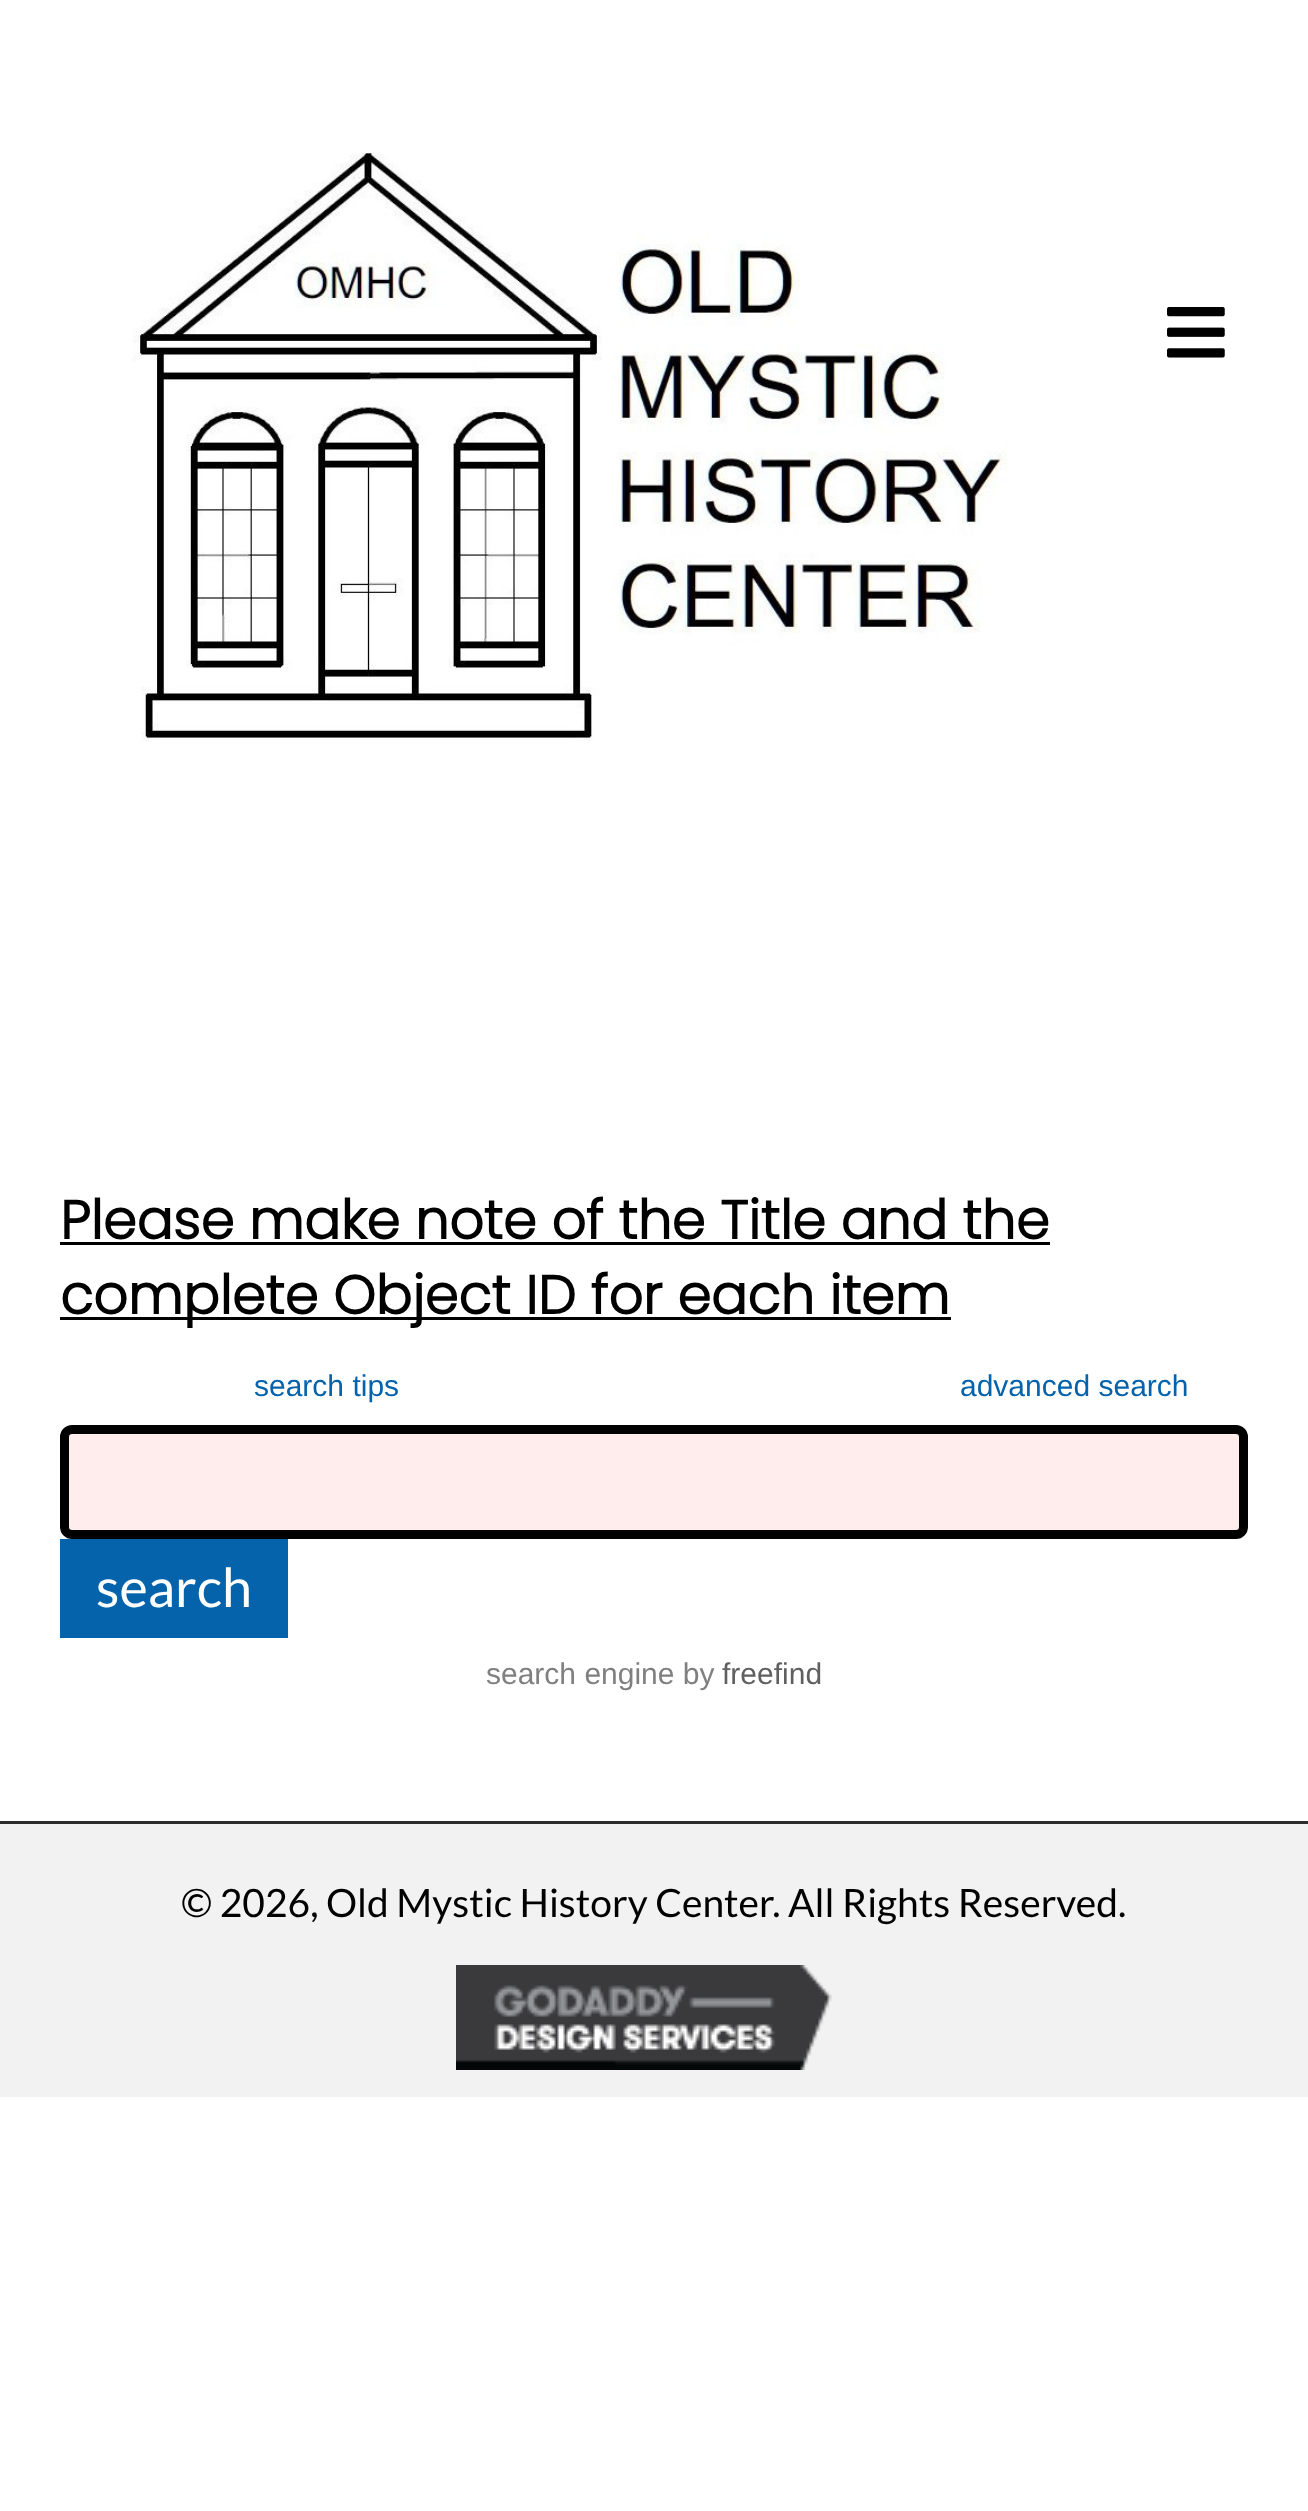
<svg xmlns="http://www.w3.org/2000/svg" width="1308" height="2511">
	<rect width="100%" height="100%" fill="#FFFFFF" />
	<image x="132" y="153" width="876" height="588" href="assets/img1.png" />
	<image x="1167" y="307" width="58" height="51" href="assets/img2.png" />
	<text x="60" y="1239" font-family="Poppins" font-size="54" font-weight="700" fill="#000000">Please make note of the Title and the</text>
	<rect x="60" y="1242" width="990" height="3" fill="#000000" />
	<rect x="60" y="1317" width="891" height="3" fill="#000000" />
	<text x="60" y="1314" font-family="Poppins" font-size="54" font-weight="700" fill="#000000">complete Object ID for each item</text>
	<g font-family="Liberation Sans" font-size="30" fill="#0563AC">
		<text x="254" y="1396">search tips</text>
		<text x="960" y="1396">advanced search</text>
	</g>
	<rect x="64.5" y="1429.5" width="1179" height="105" rx="7.5" fill="#FFEDED" stroke="#000000" stroke-width="9" />
	<rect x="60" y="1539" width="228" height="99" fill="#0563AC" />
	<text x="96" y="1607" font-family="Lato" font-size="54" fill="#FFFFFF">search</text>
	<text x="486" y="1684" font-family="Liberation Sans" font-size="30" fill="#808080">search engine by</text>
	<text x="722" y="1684" font-family="Liberation Sans" font-size="30" fill="#606060">freefind</text>
	<rect x="0" y="1824" width="1308" height="273" fill="#F2F2F2" />
	<rect x="0" y="1821" width="1308" height="3" fill="#2D2D2D" />
	<text x="181" y="1917" font-family="Lato" font-size="39" fill="#000000">© 2026, Old Mystic History Center. All Rights Reserved.</text>
	<image x="456" y="1965" width="376" height="105" href="assets/img3.png" />
</svg>
